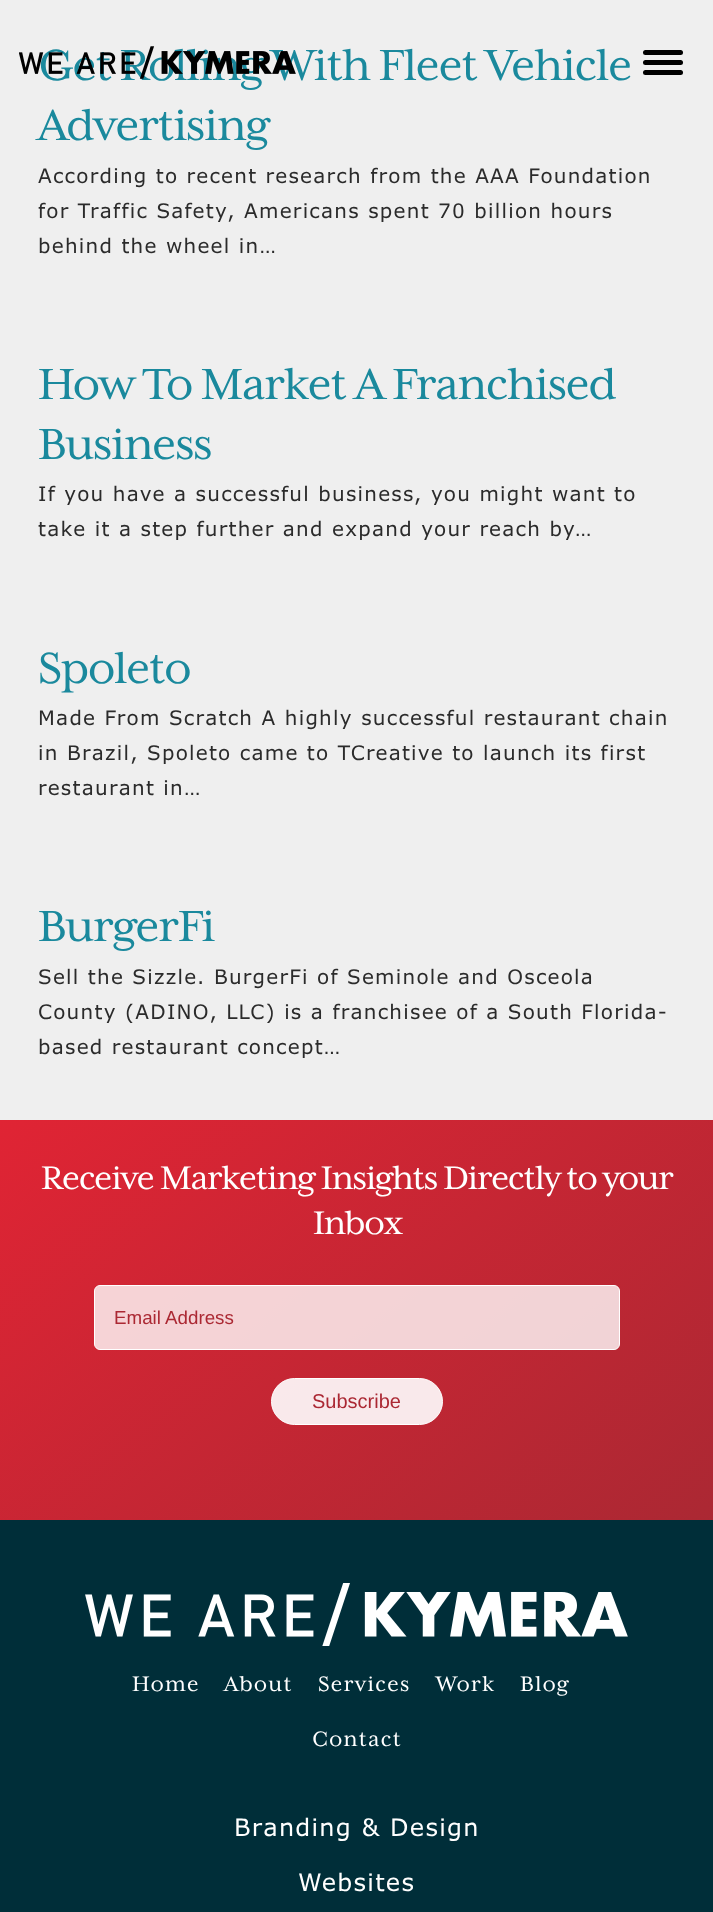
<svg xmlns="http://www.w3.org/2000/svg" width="713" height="1912">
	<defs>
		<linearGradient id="g1" gradientUnits="userSpaceOnUse" x1="118" y1="1025" x2="596" y2="1615"><stop offset="0" stop-color="#E02434" /><stop offset="1" stop-color="#AB2833" /></linearGradient>
	</defs>
	<rect width="100%" height="100%" fill="#EFEFEF" />
	<text x="38" y="80" font-family="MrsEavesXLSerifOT" font-size="50" letter-spacing="-1.25" fill="#1A899D">Get Rolling With Fleet Vehicle</text>
	<image x="19" y="46" width="277" height="33" href="assets/img1.png" />
	<rect x="643" y="50" width="40" height="5" rx="2.5" fill="#000000" />
	<rect x="643" y="60" width="40" height="5" rx="2.5" fill="#000000" />
	<rect x="643" y="70" width="40" height="5" rx="2.5" fill="#000000" />
	<text x="38" y="140" font-family="MrsEavesXLSerifOT" font-size="50" letter-spacing="-1.25" fill="#1A899D">Advertising</text>
	<g font-family="Verdana" font-size="20" letter-spacing="1.25" fill="#2B2B2B">
		<text x="38" y="183">According to recent research from the AAA Foundation</text>
		<text x="38" y="218">for Traffic Safety, Americans spent 70 billion hours</text>
		<text x="38" y="253">behind the wheel in…</text>
	</g>
	<g font-family="MrsEavesXLSerifOT" font-size="50" letter-spacing="-1.25" fill="#1A899D">
		<text x="38" y="399">How To Market A Franchised</text>
		<text x="38" y="459">Business</text>
	</g>
	<g font-family="Verdana" font-size="20" letter-spacing="1.25" fill="#2B2B2B">
		<text x="38" y="501">If you have a successful business, you might want to</text>
		<text x="38" y="536">take it a step further and expand your reach by…</text>
	</g>
	<text x="38" y="683" font-family="MrsEavesXLSerifOT" font-size="50" letter-spacing="-1.25" fill="#1A899D">Spoleto</text>
	<g font-family="Verdana" font-size="20" letter-spacing="1.25" fill="#2B2B2B">
		<text x="38" y="725">Made From Scratch A highly successful restaurant chain</text>
		<text x="38" y="760">in Brazil, Spoleto came to TCreative to launch its first</text>
		<text x="38" y="795">restaurant in…</text>
	</g>
	<text x="38" y="941" font-family="MrsEavesXLSerifOT" font-size="50" letter-spacing="-1.25" fill="#1A899D">BurgerFi</text>
	<g font-family="Verdana" font-size="20" letter-spacing="1.25" fill="#2B2B2B">
		<text x="38" y="984">Sell the Sizzle. BurgerFi of Seminole and Osceola</text>
		<text x="38" y="1019">County (ADINO, LLC) is a franchisee of a South Florida-</text>
		<text x="38" y="1054">based restaurant concept…</text>
	</g>
	<rect x="0" y="1120" width="713" height="400" fill="url(#g1)" />
	<g font-family="MrsEavesXLSerifOT" font-size="37.5" letter-spacing="-1.25" fill="#FFFFFF">
		<text x="41" y="1189">Receive Marketing Insights Directly to your</text>
		<text x="313" y="1234">Inbox</text>
	</g>
	<rect x="94.5" y="1285.5" width="525" height="64" rx="5.5" fill="#FFFFFF" fill-opacity="0.8" stroke="#FFFFFF" />
	<text x="114" y="1324" font-family="Liberation Sans" font-size="18.75" fill="#AB2833">Email Address</text>
	<rect x="271.5" y="1378.5" width="171" height="46" rx="23" fill="#FFFFFF" fill-opacity="0.9" stroke="#FFFFFF" />
	<text x="312" y="1408" font-family="Liberation Sans" font-size="20" fill="#AB2833">Subscribe</text>
	<rect x="0" y="1520" width="713" height="392" fill="#002E39" />
	<image x="85" y="1583" width="543" height="63" href="assets/img2.png" />
	<g font-family="MrsEavesXLSerifOT" font-size="24" letter-spacing="1.25" fill="#FFFFFF">
		<text x="132" y="1691">Home</text>
		<text x="224" y="1691">About</text>
		<text x="318" y="1691">Services</text>
		<text x="436" y="1691">Work</text>
		<text x="520" y="1691">Blog</text>
		<text x="312" y="1746">Contact</text>
	</g>
	<g font-family="Verdana" font-size="24" letter-spacing="1.25" fill="#FFFFFF">
		<text x="234" y="1836">Branding &amp; Design</text>
		<text x="298" y="1891">Websites</text>
	</g>
</svg>
